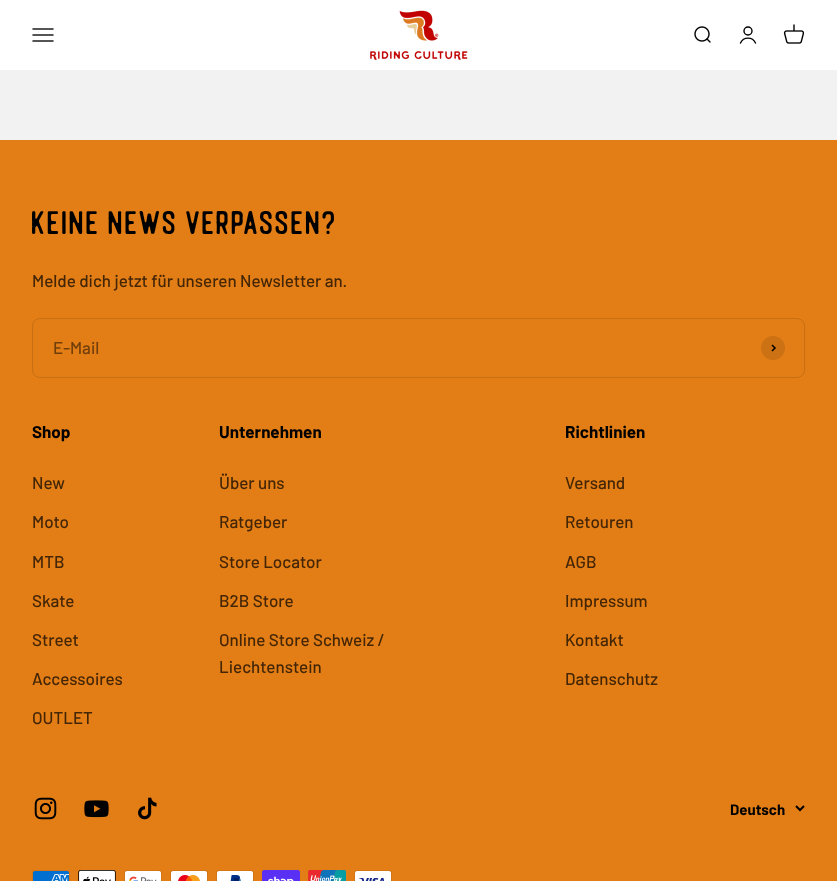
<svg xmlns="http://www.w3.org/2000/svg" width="837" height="881">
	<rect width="100%" height="100%" fill="#F2F2F2" />
	<rect x="0" y="0" width="837" height="70" fill="#FFFFFF" />
	<image x="32" y="28" width="22" height="14" href="assets/img1.png" />
	<image x="370" y="10" width="98" height="50" href="assets/img2.png" />
	<image x="694" y="26" width="17" height="17" href="assets/img3.png" />
	<circle cx="748" cy="31" r="4" fill="none" stroke="#000000" stroke-width="1.4" />
	<path d="M740.5 43C743.5 36.5 752.5 36.5 755.5 43" fill="none" stroke="#000000" stroke-width="1.4" stroke-linecap="round" />
	<image x="783" y="24" width="22" height="20" href="assets/img4.png" />
	<rect x="0" y="140" width="837" height="741" fill="#E37E16" />
	<text x="32" y="234" font-family="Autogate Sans" font-size="32" letter-spacing="1" fill="#000000">Keine News verpassen?</text>
	<text x="32" y="287" font-family="Barlow" font-size="17" font-weight="500" fill="#442607">Melde dich jetzt für unseren Newsletter an.</text>
	<rect x="32.5" y="318.5" width="772" height="59" rx="7.5" fill="none" stroke="#C86F13" />
	<text x="53" y="354" font-family="Barlow" font-size="17" font-weight="500" fill="#723F0B">E-Mail</text>
	<circle cx="773" cy="348" r="12" fill="#CC7114" />
	<path d="M772 351L775 348L772 345" fill="none" stroke="#000000" stroke-width="1.5" />
	<text x="32" y="438" font-family="Barlow" font-size="17" font-weight="700" fill="#000000">Shop</text>
	<g font-family="Barlow" font-size="17" font-weight="500" fill="#442607">
		<text x="32" y="489">New</text>
		<text x="32" y="528">Moto</text>
		<text x="32" y="568">MTB</text>
		<text x="32" y="607">Skate</text>
		<text x="32" y="646">Street</text>
		<text x="32" y="685">Accessoires</text>
		<text x="32" y="724">OUTLET</text>
	</g>
	<text x="219" y="438" font-family="Barlow" font-size="17" font-weight="700" fill="#000000">Unternehmen</text>
	<g font-family="Barlow" font-size="17" font-weight="500" fill="#442607">
		<text x="219" y="489">Über uns</text>
		<text x="219" y="528">Ratgeber</text>
		<text x="219" y="568">Store Locator</text>
		<text x="219" y="607">B2B Store</text>
		<text x="219" y="646">Online Store Schweiz /</text>
		<text x="219" y="673">Liechtenstein</text>
	</g>
	<text x="565" y="438" font-family="Barlow" font-size="17" font-weight="700" fill="#000000">Richtlinien</text>
	<g font-family="Barlow" font-size="17" font-weight="500" fill="#442607">
		<text x="565" y="489">Versand</text>
		<text x="565" y="528">Retouren</text>
		<text x="565" y="568">AGB</text>
		<text x="565" y="607">Impressum</text>
		<text x="565" y="646">Kontakt</text>
		<text x="565" y="685">Datenschutz</text>
	</g>
	<image x="34" y="797" width="23" height="23" href="assets/img5.png" />
	<image x="84" y="800" width="25" height="18" href="assets/img6.png" />
	<image x="138" y="797" width="19" height="23" href="assets/img7.png" />
	<text x="730" y="815" font-family="Barlow" font-size="15" font-weight="700" fill="#000000">Deutsch</text>
	<path d="M796 806L800 810L804 806" fill="none" stroke="#000000" stroke-width="2" />
	<image x="32" y="870" width="38" height="11" href="assets/img8.png" />
	<image x="78" y="870" width="38" height="11" href="assets/img9.png" />
	<image x="124" y="870" width="38" height="11" href="assets/img10.png" />
	<image x="170" y="870" width="38" height="11" href="assets/img11.png" />
	<image x="216" y="870" width="38" height="11" href="assets/img12.png" />
	<image x="262" y="870" width="38" height="11" href="assets/img13.png" />
	<image x="308" y="870" width="38" height="11" href="assets/img14.png" />
	<image x="354" y="870" width="38" height="11" href="assets/img15.png" />
</svg>
